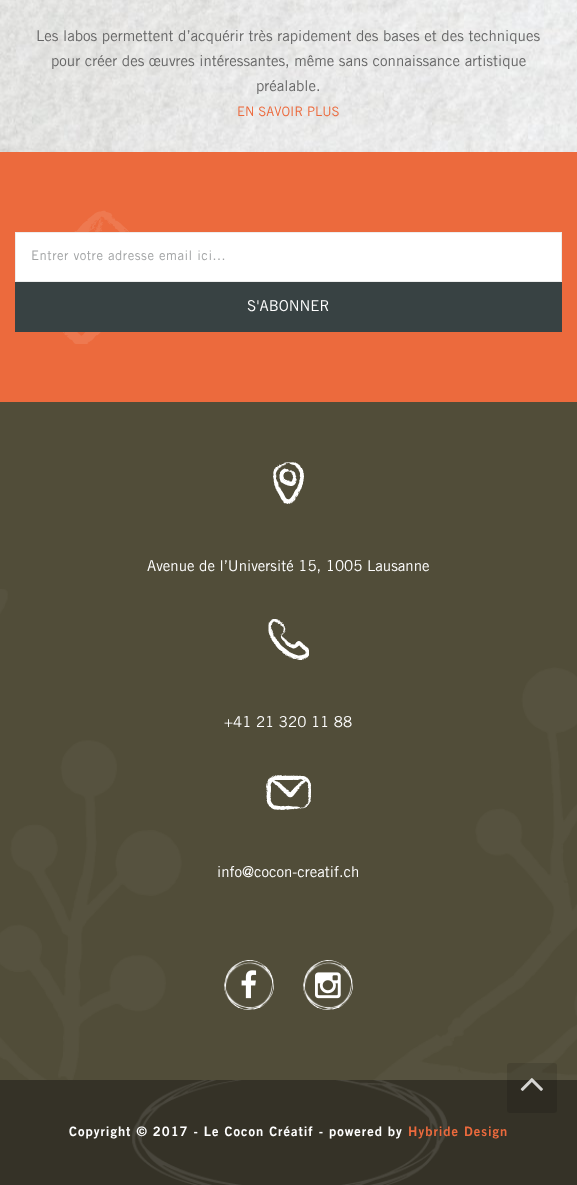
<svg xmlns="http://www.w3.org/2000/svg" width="577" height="1185">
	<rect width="100%" height="100%" fill="#FFFFFF" />
	<image x="0" y="0" width="577" height="152" href="assets/img1.png" />
	<g font-family="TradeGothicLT" font-size="15" fill="#666666">
		<text x="36" y="41">Les labos permettent d’acquérir très rapidement des bases et des techniques</text>
		<text x="51" y="66">pour créer des œuvres intéressantes, même sans connaissance artistique</text>
		<text x="256" y="91">préalable.</text>
	</g>
	<text x="237" y="116" font-family="TradeGothicLT" font-size="13" fill="#EC6A3D">EN SAVOIR PLUS</text>
	<rect x="0" y="402" width="577" height="678" fill="#514D39" />
	<rect x="0" y="152" width="577" height="250" fill="#EC6A3D" />
	<image x="63" y="210" width="66" height="134" href="assets/img2.png" />
	<rect x="15.5" y="232.5" width="546" height="49" fill="#FFFFFF" stroke="#EDEDED" />
	<text x="31" y="260" font-family="TradeGothicLT" font-size="13.1" letter-spacing="0.5" fill="#A2A4A5">Entrer votre adresse email ici...</text>
	<rect x="15" y="282" width="547" height="50" fill="#384243" />
	<text x="247" y="311" font-family="TradeGothicLT" font-size="15" fill="#FFFFFF">S'ABONNER</text>
	<image x="0" y="589" width="577" height="491" href="assets/img3.png" />
	<image x="273" y="462" width="31" height="42" href="assets/img4.png" />
	<text x="147" y="571" font-family="TradeGothicLT" font-size="15" fill="#FFFFFF">Avenue de l’Université 15, 1005 Lausanne</text>
	<image x="268" y="619" width="41" height="41" href="assets/img5.png" />
	<text x="224" y="727" font-family="TradeGothicLT" font-size="15" fill="#FFFFFF">+41 21 320 11 88</text>
	<image x="266" y="775" width="45" height="35" href="assets/img6.png" />
	<text x="217" y="877" font-family="TradeGothicLT" font-size="15" fill="#FFFFFF">info@cocon-creatif.ch</text>
	<image x="224" y="960" width="50" height="50" href="assets/img7.png" />
	<image x="241" y="970" width="16" height="29" href="assets/img8.png" />
	<image x="303" y="960" width="50" height="50" href="assets/img9.png" />
	<image x="315" y="972" width="26" height="27" href="assets/img10.png" />
	<rect x="0" y="1080" width="577" height="105" fill="#353227" />
	<image x="132" y="1080" width="316" height="105" href="assets/img11.png" />
	<text x="69" y="1136" font-family="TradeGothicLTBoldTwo" font-size="13" font-weight="700" letter-spacing="1" fill="#FFFFFF">Copyright © 2017 - Le Cocon Créatif - powered by</text>
	<text x="408" y="1136" font-family="TradeGothicLTBoldTwo" font-size="13" font-weight="700" letter-spacing="1" fill="#EC6A3D">Hybride Design</text>
	<rect x="507" y="1063" width="50" height="50" rx="3" fill="#000000" fill-opacity="0.12" />
	<image x="520" y="1078" width="23" height="13" href="assets/img12.png" />
</svg>
